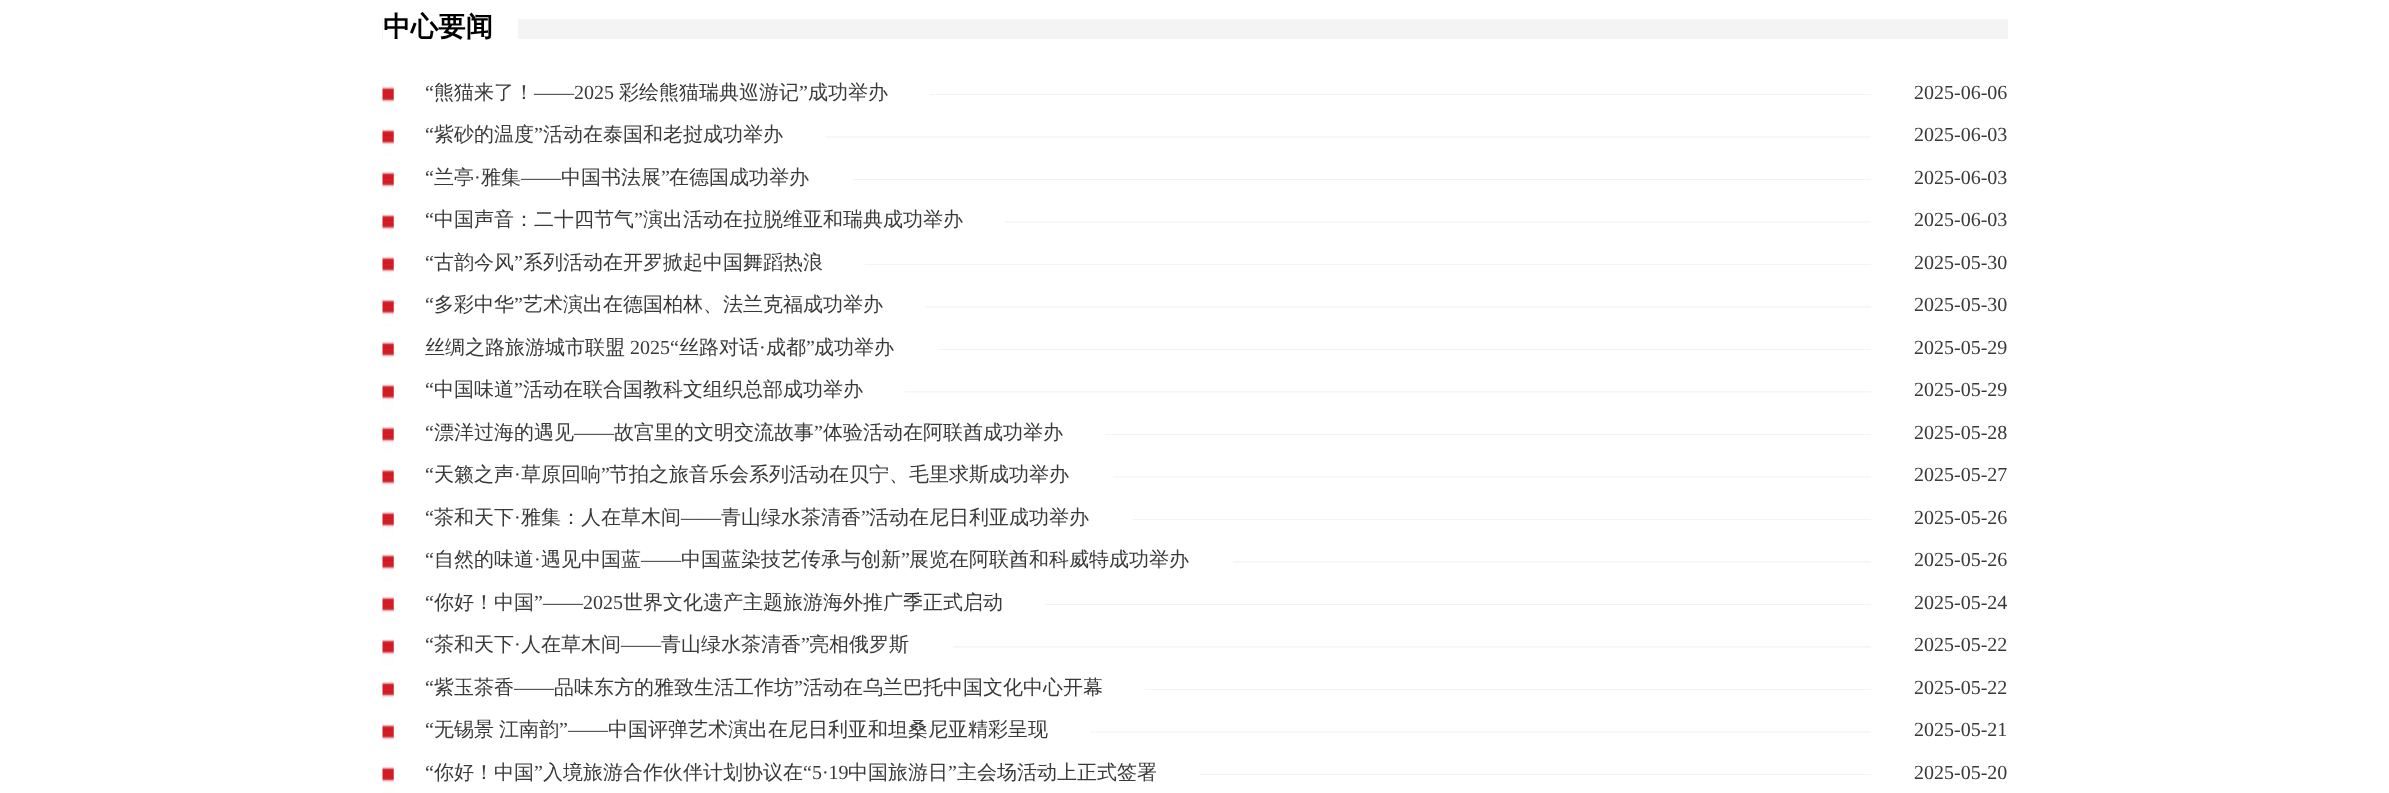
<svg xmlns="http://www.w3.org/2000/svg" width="2389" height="793">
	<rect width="100%" height="100%" fill="#FFFFFF" />
	<rect x="382" y="19" width="1626" height="20" fill="#F4F4F4" />
	<rect x="383" y="19" width="135" height="20" fill="#FFFFFF" />
	<text x="383" y="36" font-family="WenQuanYi Zen Hei" font-size="27.5" font-weight="700" fill="#000000">中心要闻</text>
	<image x="382" y="94" width="1489" height="1" href="assets/img1.png" />
	<rect x="383" y="94" width="547" height="1" fill="#FFFFFF" />
	<image x="382" y="86" width="12" height="27" href="assets/img2.png" />
	<text x="425" y="99" font-family="Liberation Serif" font-size="20" fill="#393939">“</text>
	<text x="434" y="99" font-family="WenQuanYi Zen Hei" font-size="20" font-weight="500" fill="#393939">熊猫来了！</text>
	<text x="534" y="99" font-family="Liberation Serif" font-size="20" fill="#393939">——2025</text>
	<text x="619" y="99" font-family="WenQuanYi Zen Hei" font-size="20" font-weight="500" fill="#393939">彩绘熊猫瑞典巡游记</text>
	<text x="799" y="99" font-family="Liberation Serif" font-size="20" fill="#393939">”</text>
	<text x="808" y="99" font-family="WenQuanYi Zen Hei" font-size="20" font-weight="500" fill="#393939">成功举办</text>
	<text x="1914" y="99" font-family="Liberation Serif" font-size="20" fill="#393939">2025-06-06</text>
	<image x="382" y="136" width="1489" height="2" href="assets/img3.png" />
	<rect x="383" y="136" width="442" height="2" fill="#FFFFFF" />
	<image x="382" y="129" width="12" height="27" href="assets/img4.png" />
	<text x="425" y="141" font-family="Liberation Serif" font-size="20" fill="#393939">“</text>
	<text x="434" y="141" font-family="WenQuanYi Zen Hei" font-size="20" font-weight="500" fill="#393939">紫砂的温度</text>
	<text x="534" y="141" font-family="Liberation Serif" font-size="20" fill="#393939">”</text>
	<text x="543" y="141" font-family="WenQuanYi Zen Hei" font-size="20" font-weight="500" fill="#393939">活动在泰国和老挝成功举办</text>
	<text x="1914" y="141" font-family="Liberation Serif" font-size="20" fill="#393939">2025-06-03</text>
	<image x="382" y="179" width="1489" height="1" href="assets/img1.png" />
	<rect x="383" y="179" width="470" height="1" fill="#FFFFFF" />
	<image x="382" y="171" width="12" height="27" href="assets/img2.png" />
	<text x="425" y="184" font-family="Liberation Serif" font-size="20" fill="#393939">“</text>
	<g font-family="WenQuanYi Zen Hei" font-size="20" font-weight="500" fill="#393939">
		<text x="434" y="184">兰亭</text>
		<text x="481" y="184">雅集</text>
		<text x="561" y="184">中国书法展</text>
	</g>
	<text x="661" y="184" font-family="Liberation Serif" font-size="20" fill="#393939">”</text>
	<text x="669" y="184" font-family="WenQuanYi Zen Hei" font-size="20" font-weight="500" fill="#393939">在德国成功举办</text>
	<g font-family="Liberation Serif" font-size="20" fill="#393939">
		<text x="474" y="184">·</text>
		<text x="521" y="184">——</text>
		<text x="1914" y="184">2025-06-03</text>
	</g>
	<image x="382" y="221" width="1489" height="2" href="assets/img3.png" />
	<rect x="383" y="221" width="622" height="2" fill="#FFFFFF" />
	<image x="382" y="214" width="12" height="27" href="assets/img4.png" />
	<text x="425" y="226" font-family="Liberation Serif" font-size="20" fill="#393939">“</text>
	<text x="434" y="226" font-family="WenQuanYi Zen Hei" font-size="20" font-weight="500" fill="#393939">中国声音：二十四节气</text>
	<text x="634" y="226" font-family="Liberation Serif" font-size="20" fill="#393939">”</text>
	<text x="643" y="226" font-family="WenQuanYi Zen Hei" font-size="20" font-weight="500" fill="#393939">演出活动在拉脱维亚和瑞典成功举办</text>
	<text x="1914" y="226" font-family="Liberation Serif" font-size="20" fill="#393939">2025-06-03</text>
	<image x="382" y="264" width="1489" height="1" href="assets/img1.png" />
	<rect x="383" y="264" width="482" height="1" fill="#FFFFFF" />
	<image x="382" y="256" width="12" height="27" href="assets/img2.png" />
	<text x="425" y="269" font-family="Liberation Serif" font-size="20" fill="#393939">“</text>
	<text x="434" y="269" font-family="WenQuanYi Zen Hei" font-size="20" font-weight="500" fill="#393939">古韵今风</text>
	<text x="514" y="269" font-family="Liberation Serif" font-size="20" fill="#393939">”</text>
	<text x="523" y="269" font-family="WenQuanYi Zen Hei" font-size="20" font-weight="500" fill="#393939">系列活动在开罗掀起中国舞蹈热浪</text>
	<text x="1914" y="269" font-family="Liberation Serif" font-size="20" fill="#393939">2025-05-30</text>
	<image x="382" y="306" width="1489" height="2" href="assets/img3.png" />
	<rect x="383" y="306" width="542" height="2" fill="#FFFFFF" />
	<image x="382" y="299" width="12" height="27" href="assets/img4.png" />
	<text x="425" y="311" font-family="Liberation Serif" font-size="20" fill="#393939">“</text>
	<text x="434" y="311" font-family="WenQuanYi Zen Hei" font-size="20" font-weight="500" fill="#393939">多彩中华</text>
	<text x="514" y="311" font-family="Liberation Serif" font-size="20" fill="#393939">”</text>
	<text x="523" y="311" font-family="WenQuanYi Zen Hei" font-size="20" font-weight="500" fill="#393939">艺术演出在德国柏林、法兰克福成功举办</text>
	<text x="1914" y="311" font-family="Liberation Serif" font-size="20" fill="#393939">2025-05-30</text>
	<image x="382" y="349" width="1489" height="1" href="assets/img1.png" />
	<rect x="383" y="349" width="555" height="1" fill="#FFFFFF" />
	<image x="382" y="341" width="12" height="27" href="assets/img2.png" />
	<text x="425" y="354" font-family="WenQuanYi Zen Hei" font-size="20" font-weight="500" fill="#393939">丝绸之路旅游城市联盟</text>
	<text x="630" y="354" font-family="Liberation Serif" font-size="20" fill="#393939">2025“</text>
	<g font-family="WenQuanYi Zen Hei" font-size="20" font-weight="500" fill="#393939">
		<text x="679" y="354">丝路对话</text>
		<text x="766" y="354">成都</text>
	</g>
	<text x="806" y="354" font-family="Liberation Serif" font-size="20" fill="#393939">”</text>
	<text x="814" y="354" font-family="WenQuanYi Zen Hei" font-size="20" font-weight="500" fill="#393939">成功举办</text>
	<g font-family="Liberation Serif" font-size="20" fill="#393939">
		<text x="759" y="354">·</text>
		<text x="1914" y="354">2025-05-29</text>
	</g>
	<image x="382" y="391" width="1489" height="2" href="assets/img3.png" />
	<rect x="383" y="391" width="522" height="2" fill="#FFFFFF" />
	<image x="382" y="384" width="12" height="27" href="assets/img4.png" />
	<text x="425" y="396" font-family="Liberation Serif" font-size="20" fill="#393939">“</text>
	<text x="434" y="396" font-family="WenQuanYi Zen Hei" font-size="20" font-weight="500" fill="#393939">中国味道</text>
	<text x="514" y="396" font-family="Liberation Serif" font-size="20" fill="#393939">”</text>
	<text x="523" y="396" font-family="WenQuanYi Zen Hei" font-size="20" font-weight="500" fill="#393939">活动在联合国教科文组织总部成功举办</text>
	<text x="1914" y="396" font-family="Liberation Serif" font-size="20" fill="#393939">2025-05-29</text>
	<image x="382" y="434" width="1489" height="1" href="assets/img1.png" />
	<rect x="383" y="434" width="722" height="1" fill="#FFFFFF" />
	<image x="382" y="426" width="12" height="27" href="assets/img2.png" />
	<text x="425" y="439" font-family="Liberation Serif" font-size="20" fill="#393939">“</text>
	<text x="434" y="439" font-family="WenQuanYi Zen Hei" font-size="20" font-weight="500" fill="#393939">漂洋过海的遇见</text>
	<text x="574" y="439" font-family="Liberation Serif" font-size="20" fill="#393939">——</text>
	<text x="614" y="439" font-family="WenQuanYi Zen Hei" font-size="20" font-weight="500" fill="#393939">故宫里的文明交流故事</text>
	<text x="814" y="439" font-family="Liberation Serif" font-size="20" fill="#393939">”</text>
	<text x="823" y="439" font-family="WenQuanYi Zen Hei" font-size="20" font-weight="500" fill="#393939">体验活动在阿联酋成功举办</text>
	<text x="1914" y="439" font-family="Liberation Serif" font-size="20" fill="#393939">2025-05-28</text>
	<image x="382" y="476" width="1489" height="2" href="assets/img3.png" />
	<rect x="383" y="476" width="730" height="2" fill="#FFFFFF" />
	<image x="382" y="469" width="12" height="27" href="assets/img4.png" />
	<text x="425" y="481" font-family="Liberation Serif" font-size="20" fill="#393939">“</text>
	<g font-family="WenQuanYi Zen Hei" font-size="20" font-weight="500" fill="#393939">
		<text x="434" y="481">天籁之声</text>
		<text x="521" y="481">草原回响</text>
	</g>
	<text x="601" y="481" font-family="Liberation Serif" font-size="20" fill="#393939">”</text>
	<text x="609" y="481" font-family="WenQuanYi Zen Hei" font-size="20" font-weight="500" fill="#393939">节拍之旅音乐会系列活动在贝宁、毛里求斯成功举办</text>
	<g font-family="Liberation Serif" font-size="20" fill="#393939">
		<text x="514" y="481">·</text>
		<text x="1914" y="481">2025-05-27</text>
	</g>
	<image x="382" y="519" width="1489" height="1" href="assets/img1.png" />
	<rect x="383" y="519" width="750" height="1" fill="#FFFFFF" />
	<image x="382" y="511" width="12" height="27" href="assets/img2.png" />
	<text x="425" y="524" font-family="Liberation Serif" font-size="20" fill="#393939">“</text>
	<g font-family="WenQuanYi Zen Hei" font-size="20" font-weight="500" fill="#393939">
		<text x="434" y="524">茶和天下</text>
		<text x="521" y="524">雅集：人在草木间</text>
	</g>
	<text x="681" y="524" font-family="Liberation Serif" font-size="20" fill="#393939">——</text>
	<text x="721" y="524" font-family="WenQuanYi Zen Hei" font-size="20" font-weight="500" fill="#393939">青山绿水茶清香</text>
	<text x="861" y="524" font-family="Liberation Serif" font-size="20" fill="#393939">”</text>
	<text x="869" y="524" font-family="WenQuanYi Zen Hei" font-size="20" font-weight="500" fill="#393939">活动在尼日利亚成功举办</text>
	<g font-family="Liberation Serif" font-size="20" fill="#393939">
		<text x="514" y="524">·</text>
		<text x="1914" y="524">2025-05-26</text>
	</g>
	<image x="382" y="561" width="1489" height="2" href="assets/img3.png" />
	<rect x="383" y="561" width="850" height="2" fill="#FFFFFF" />
	<image x="382" y="554" width="12" height="27" href="assets/img4.png" />
	<text x="425" y="566" font-family="Liberation Serif" font-size="20" fill="#393939">“</text>
	<g font-family="WenQuanYi Zen Hei" font-size="20" font-weight="500" fill="#393939">
		<text x="434" y="566">自然的味道</text>
		<text x="541" y="566">遇见中国蓝</text>
		<text x="681" y="566">中国蓝染技艺传承与创新</text>
	</g>
	<text x="901" y="566" font-family="Liberation Serif" font-size="20" fill="#393939">”</text>
	<text x="909" y="566" font-family="WenQuanYi Zen Hei" font-size="20" font-weight="500" fill="#393939">展览在阿联酋和科威特成功举办</text>
	<g font-family="Liberation Serif" font-size="20" fill="#393939">
		<text x="534" y="566">·</text>
		<text x="641" y="566">——</text>
		<text x="1914" y="566">2025-05-26</text>
	</g>
	<image x="382" y="604" width="1489" height="1" href="assets/img1.png" />
	<rect x="383" y="604" width="662" height="1" fill="#FFFFFF" />
	<image x="382" y="596" width="12" height="27" href="assets/img2.png" />
	<text x="425" y="609" font-family="Liberation Serif" font-size="20" fill="#393939">“</text>
	<text x="434" y="609" font-family="WenQuanYi Zen Hei" font-size="20" font-weight="500" fill="#393939">你好！中国</text>
	<text x="534" y="609" font-family="Liberation Serif" font-size="20" fill="#393939">”——2025</text>
	<text x="623" y="609" font-family="WenQuanYi Zen Hei" font-size="20" font-weight="500" fill="#393939">世界文化遗产主题旅游海外推广季正式启动</text>
	<text x="1914" y="609" font-family="Liberation Serif" font-size="20" fill="#393939">2025-05-24</text>
	<image x="382" y="646" width="1489" height="2" href="assets/img5.png" />
	<rect x="383" y="646" width="570" height="2" fill="#FFFFFF" />
	<image x="382" y="639" width="12" height="27" href="assets/img6.png" />
	<text x="425" y="651" font-family="Liberation Serif" font-size="20" fill="#393939">“</text>
	<g font-family="WenQuanYi Zen Hei" font-size="20" font-weight="500" fill="#393939">
		<text x="434" y="651">茶和天下</text>
		<text x="521" y="651">人在草木间</text>
	</g>
	<text x="621" y="651" font-family="Liberation Serif" font-size="20" fill="#393939">——</text>
	<text x="661" y="651" font-family="WenQuanYi Zen Hei" font-size="20" font-weight="500" fill="#393939">青山绿水茶清香</text>
	<text x="801" y="651" font-family="Liberation Serif" font-size="20" fill="#393939">”</text>
	<text x="809" y="651" font-family="WenQuanYi Zen Hei" font-size="20" font-weight="500" fill="#393939">亮相俄罗斯</text>
	<g font-family="Liberation Serif" font-size="20" fill="#393939">
		<text x="514" y="651">·</text>
		<text x="1914" y="651">2025-05-22</text>
	</g>
	<image x="382" y="689" width="1489" height="1" href="assets/img1.png" />
	<rect x="383" y="689" width="762" height="1" fill="#FFFFFF" />
	<image x="382" y="681" width="12" height="27" href="assets/img2.png" />
	<text x="425" y="694" font-family="Liberation Serif" font-size="20" fill="#393939">“</text>
	<text x="434" y="694" font-family="WenQuanYi Zen Hei" font-size="20" font-weight="500" fill="#393939">紫玉茶香</text>
	<text x="514" y="694" font-family="Liberation Serif" font-size="20" fill="#393939">——</text>
	<text x="554" y="694" font-family="WenQuanYi Zen Hei" font-size="20" font-weight="500" fill="#393939">品味东方的雅致生活工作坊</text>
	<text x="794" y="694" font-family="Liberation Serif" font-size="20" fill="#393939">”</text>
	<text x="803" y="694" font-family="WenQuanYi Zen Hei" font-size="20" font-weight="500" fill="#393939">活动在乌兰巴托中国文化中心开幕</text>
	<text x="1914" y="694" font-family="Liberation Serif" font-size="20" fill="#393939">2025-05-22</text>
	<image x="382" y="731" width="1489" height="2" href="assets/img3.png" />
	<rect x="383" y="731" width="707" height="2" fill="#FFFFFF" />
	<image x="382" y="724" width="12" height="27" href="assets/img4.png" />
	<text x="425" y="736" font-family="Liberation Serif" font-size="20" fill="#393939">“</text>
	<text x="434" y="736" word-spacing="-1" font-family="WenQuanYi Zen Hei" font-size="20" font-weight="500" fill="#393939">无锡景 江南韵</text>
	<text x="559" y="736" font-family="Liberation Serif" font-size="20" fill="#393939">”——</text>
	<text x="608" y="736" font-family="WenQuanYi Zen Hei" font-size="20" font-weight="500" fill="#393939">中国评弹艺术演出在尼日利亚和坦桑尼亚精彩呈现</text>
	<text x="1914" y="736" font-family="Liberation Serif" font-size="20" fill="#393939">2025-05-21</text>
	<image x="382" y="774" width="1489" height="1" href="assets/img1.png" />
	<rect x="383" y="774" width="817" height="1" fill="#FFFFFF" />
	<image x="382" y="766" width="12" height="27" href="assets/img2.png" />
	<text x="425" y="779" font-family="Liberation Serif" font-size="20" fill="#393939">“</text>
	<text x="434" y="779" font-family="WenQuanYi Zen Hei" font-size="20" font-weight="500" fill="#393939">你好！中国</text>
	<text x="534" y="779" font-family="Liberation Serif" font-size="20" fill="#393939">”</text>
	<text x="543" y="779" font-family="WenQuanYi Zen Hei" font-size="20" font-weight="500" fill="#393939">入境旅游合作伙伴计划协议在</text>
	<text x="803" y="779" font-family="Liberation Serif" font-size="20" fill="#393939">“5·19</text>
	<text x="848" y="779" font-family="WenQuanYi Zen Hei" font-size="20" font-weight="500" fill="#393939">中国旅游日</text>
	<text x="948" y="779" font-family="Liberation Serif" font-size="20" fill="#393939">”</text>
	<text x="957" y="779" font-family="WenQuanYi Zen Hei" font-size="20" font-weight="500" fill="#393939">主会场活动上正式签署</text>
	<text x="1914" y="779" font-family="Liberation Serif" font-size="20" fill="#393939">2025-05-20</text>
</svg>
